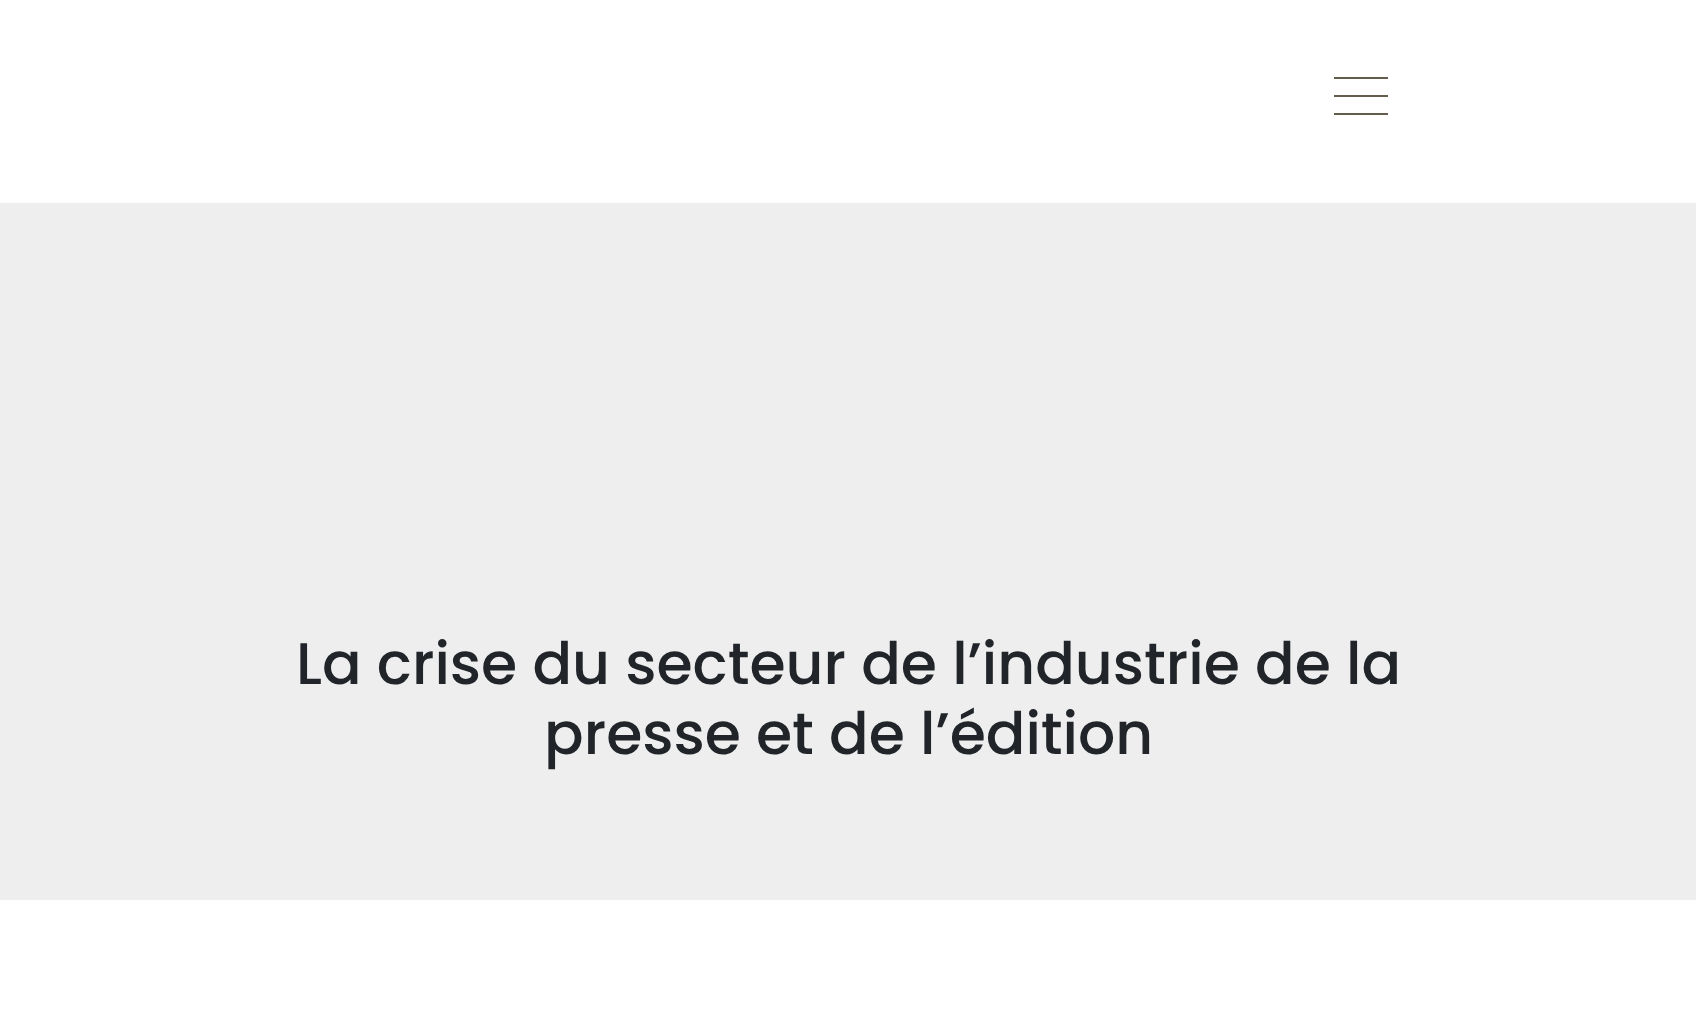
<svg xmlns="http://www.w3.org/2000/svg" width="1696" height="1022">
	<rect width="100%" height="100%" fill="#FFFFFF" />
	<rect x="1334" y="77" width="54" height="2" fill="#655D4C" />
	<rect x="1334" y="95" width="54" height="2" fill="#655D4C" />
	<rect x="1334" y="113" width="54" height="2" fill="#655D4C" />
	<rect x="0" y="203" width="1696" height="697" fill="#EEEEEE" />
	<g font-family="Poppins" font-size="58.5" font-weight="500" fill="#212529">
		<text x="296" y="684">La crise du secteur de l’industrie de la</text>
		<text x="544" y="754">presse et de l’édition</text>
	</g>
</svg>
